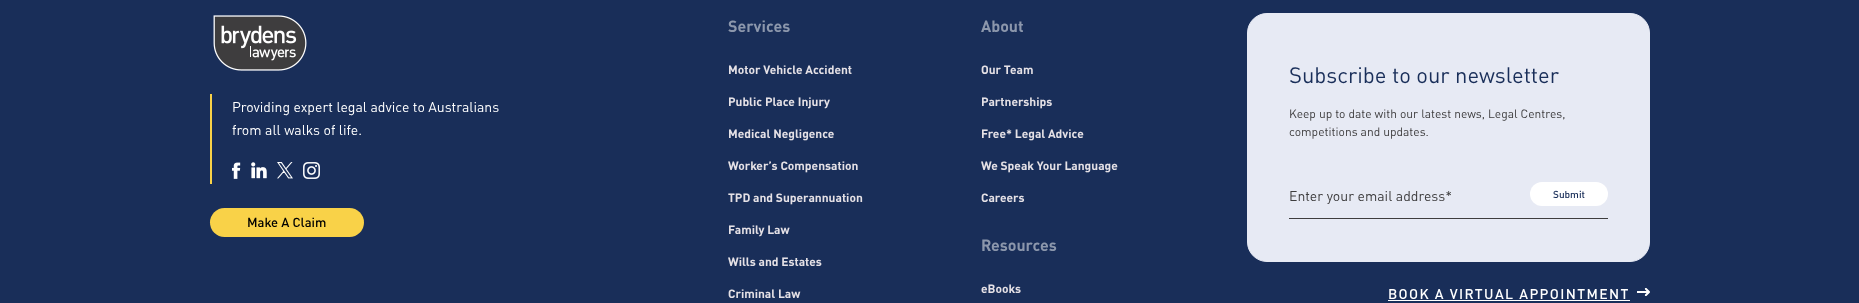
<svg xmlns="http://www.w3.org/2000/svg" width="1859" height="303">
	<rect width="100%" height="100%" fill="#192E59" />
	<image x="213" y="15" width="94" height="56" href="assets/img1.png" />
	<rect x="210" y="94" width="2" height="90" fill="#F9D248" />
	<g font-family="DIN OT" font-size="14" fill="#FFFFFF">
		<text x="232" y="112">Providing expert legal advice to Australians</text>
		<text x="232" y="135">from all walks of life.</text>
	</g>
	<image x="232" y="162" width="9" height="17" href="assets/img2.png" />
	<image x="251" y="162" width="16" height="17" href="assets/img3.png" />
	<image x="277" y="162" width="16" height="17" href="assets/img4.png" />
	<image x="303" y="162" width="17" height="17" href="assets/img5.png" />
	<rect x="210" y="208" width="154" height="29" rx="14.5" fill="#F9D248" />
	<text x="247" y="227" font-family="DIN OT" font-size="13" font-weight="500" fill="#000000">Make A Claim</text>
	<text x="728" y="32" font-family="DIN OT" font-size="16" font-weight="700" fill="#8C97AC">Services</text>
	<g font-family="DIN OT" font-size="12" font-weight="700" fill="#E5E1E6">
		<text x="728" y="74">Motor Vehicle Accident</text>
		<text x="728" y="106">Public Place Injury</text>
		<text x="728" y="138">Medical Negligence</text>
		<text x="728" y="170">Worker’s Compensation</text>
		<text x="728" y="202">TPD and Superannuation</text>
		<text x="728" y="234">Family Law</text>
		<text x="728" y="266">Wills and Estates</text>
		<text x="728" y="298">Criminal Law</text>
	</g>
	<text x="981" y="32" font-family="DIN OT" font-size="16" font-weight="700" fill="#8C97AC">About</text>
	<g font-family="DIN OT" font-size="12" font-weight="700" fill="#E5E1E6">
		<text x="981" y="74">Our Team</text>
		<text x="981" y="106">Partnerships</text>
		<text x="981" y="138">Free* Legal Advice</text>
		<text x="981" y="170">We Speak Your Language</text>
		<text x="981" y="202">Careers</text>
	</g>
	<text x="981" y="251" font-family="DIN OT" font-size="16" font-weight="700" fill="#8C97AC">Resources</text>
	<text x="981" y="293" font-family="DIN OT" font-size="12" font-weight="700" fill="#E5E1E6">eBooks</text>
	<rect x="1247.5" y="13.5" width="402" height="248" rx="19.5" fill="#E7EAF4" stroke="#E7EAF4" />
	<text x="1289" y="83" font-family="DIN OT" font-size="22" fill="#192E59">Subscribe to our newsletter</text>
	<g font-family="DIN OT" font-size="12" fill="#3E3D3E">
		<text x="1289" y="118">Keep up to date with our latest news, Legal Centres,</text>
		<text x="1289" y="136">competitions and updates.</text>
	</g>
	<rect x="1289" y="218" width="319" height="1" fill="#3E3D3E" />
	<text x="1289" y="201" font-family="DIN OT" font-size="14" fill="#3E3D3E">Enter your email address*</text>
	<rect x="1530" y="182" width="78" height="24" rx="12" fill="#FFFFFF" />
	<text x="1553" y="198" font-family="DIN OT" font-size="10" font-weight="500" fill="#192E59">Submit</text>
	<text x="1388" y="299" font-family="DIN OT" font-size="14" font-weight="500" letter-spacing="1.4" fill="#FFFFFF">BOOK A VIRTUAL APPOINTMENT</text>
	<rect x="1388" y="300" width="242" height="1" fill="#FFFFFF" />
	<image x="1637" y="288" width="13" height="8" href="assets/img6.png" />
</svg>
